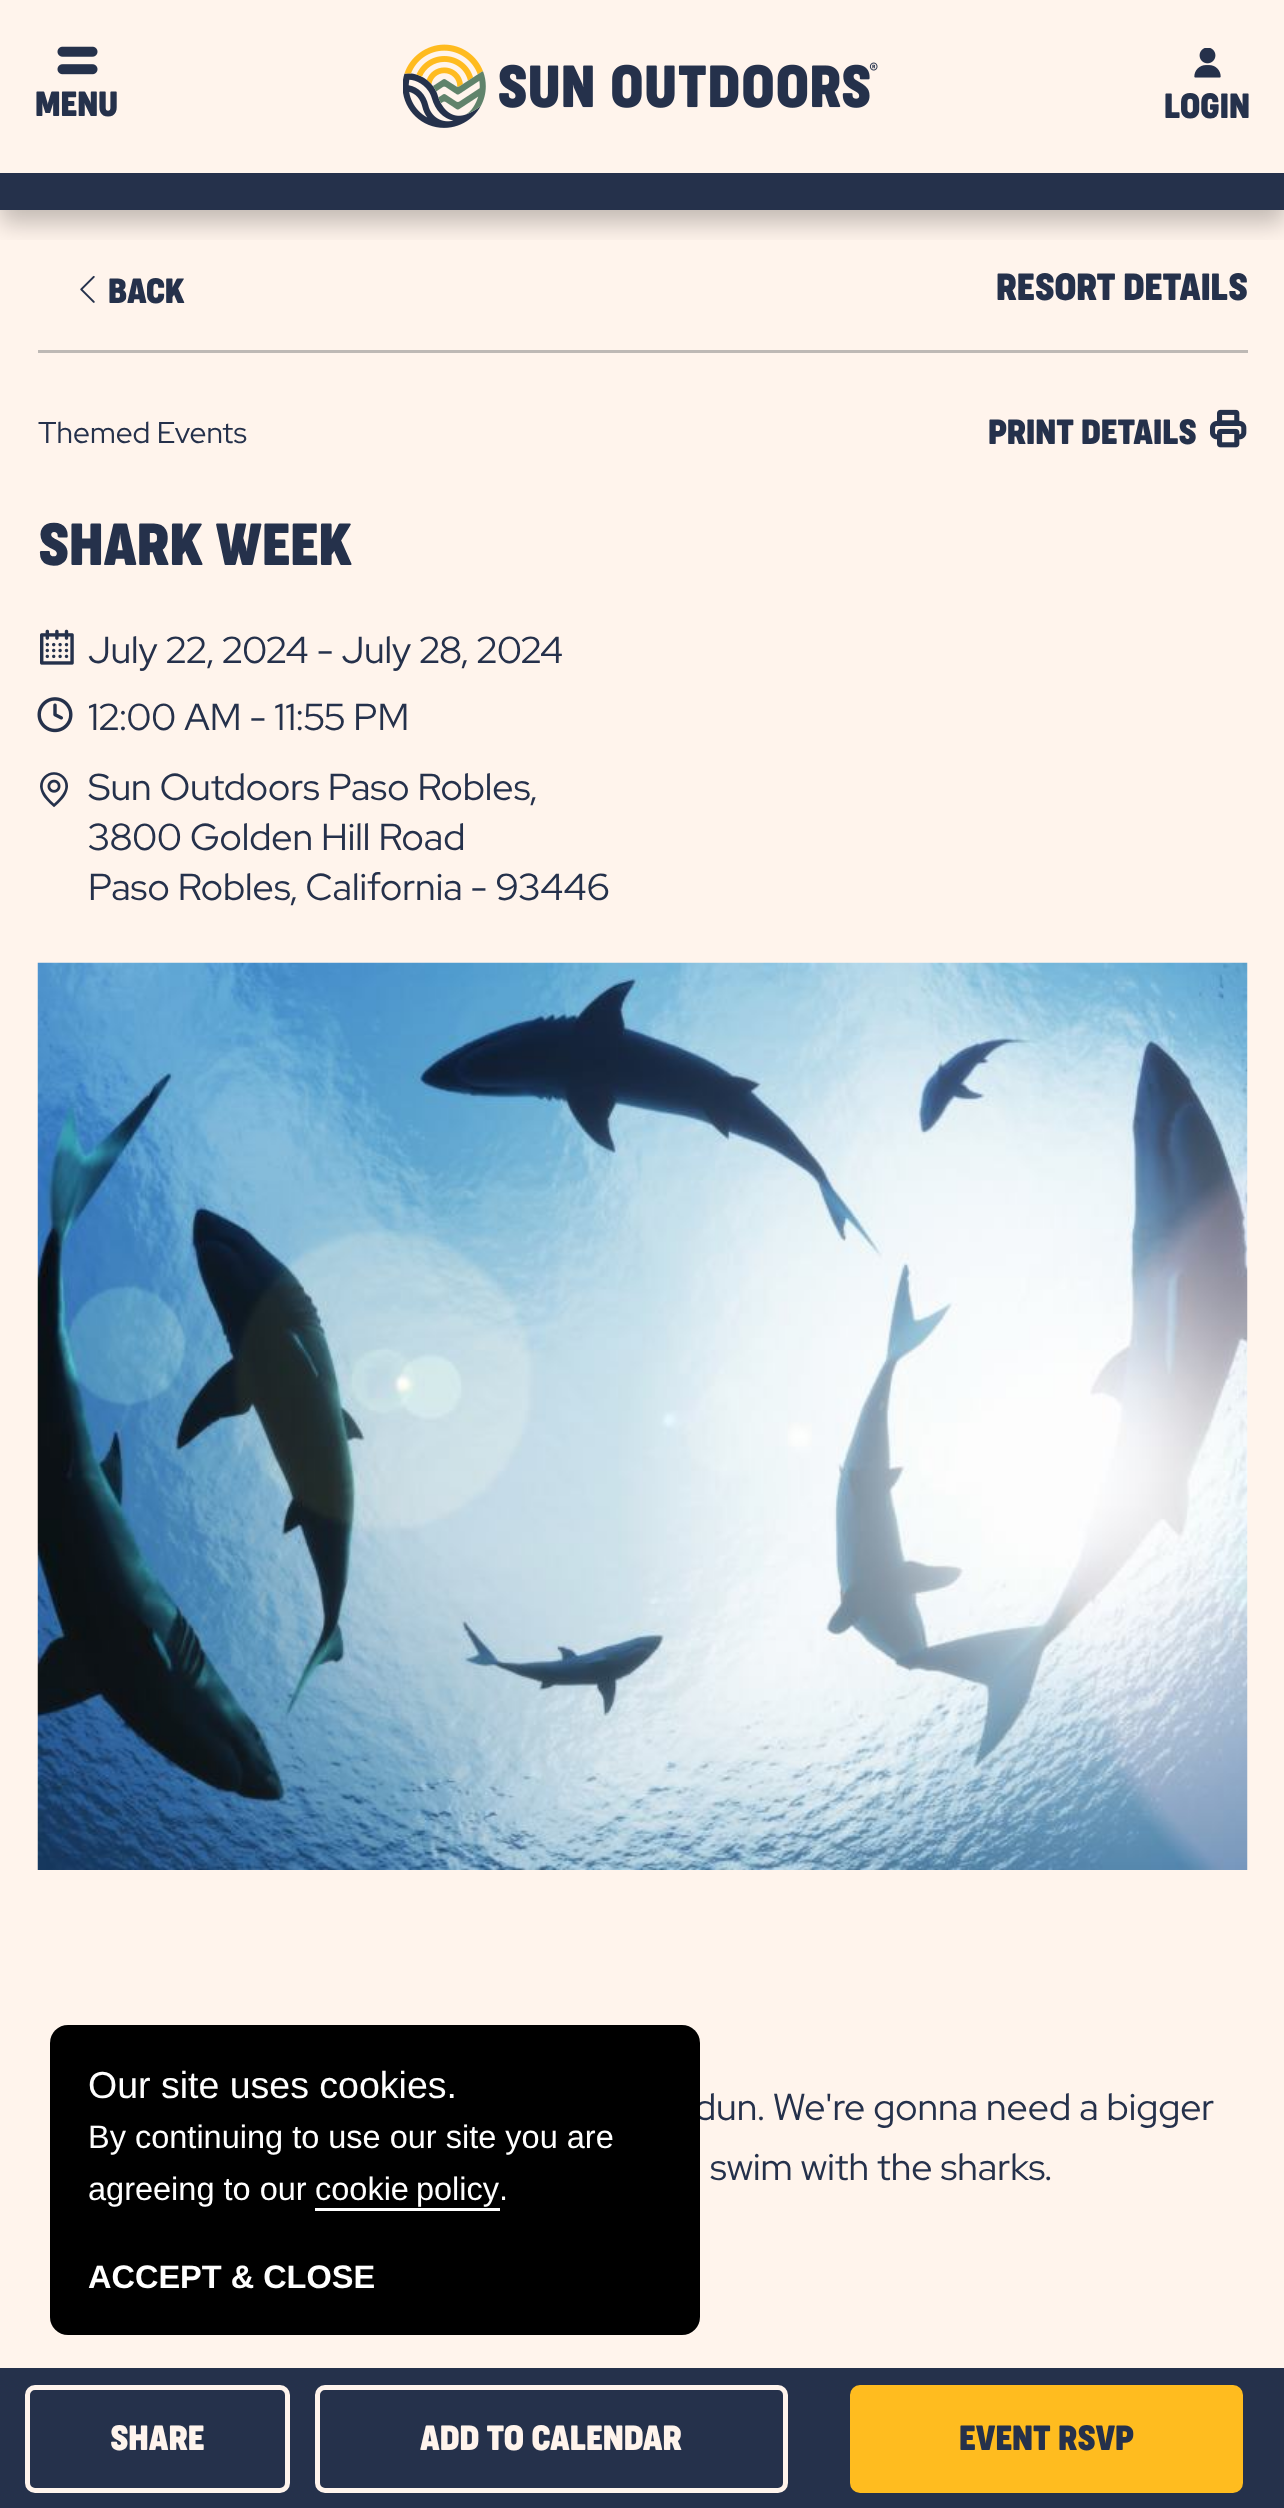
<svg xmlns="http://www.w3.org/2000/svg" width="1284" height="2508">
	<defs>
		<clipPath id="clip1"><rect x="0" y="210" width="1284" height="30" /></clipPath>
	</defs>
	<rect width="100%" height="100%" fill="#FFF4EC" />
	<g clip-path="url(#clip1)">
		<rect x="0" y="13" width="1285" height="210" fill="#000000" fill-opacity="0.24" filter="blur(12.5px)" />
	</g>
	<rect x="0" y="173" width="1284" height="37" fill="#25314B" />
	<image x="57" y="46" width="41" height="29" href="assets/img1.png" />
	<text x="35" y="116" font-family="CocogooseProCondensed" font-size="32.5" font-weight="700" fill="#25314B">MENU</text>
	<image x="403" y="44" width="475" height="84" href="assets/img2.png" />
	<image x="1194" y="48" width="27" height="30" href="assets/img3.png" />
	<text x="1164" y="118" font-family="CocogooseProCondensed" font-size="32.5" font-weight="700" fill="#25314B">LOGIN</text>
	<image x="80" y="275" width="15" height="28" href="assets/img4.png" />
	<text x="108" y="303" font-family="CocogooseProCondensed" font-size="32.5" font-weight="700" fill="#25314B">BACK</text>
	<text x="996" y="300" font-family="CocogooseProCondensed" font-size="35" font-weight="700" fill="#25314B">RESORT DETAILS</text>
	<rect x="38" y="350" width="1210" height="3" fill="#BEB9B5" />
	<text x="38" y="443" font-family="Red Hat Display" font-size="30" fill="#25314B">Themed Events</text>
	<text x="988" y="444" font-family="CocogooseProCondensed" font-size="32.5" font-weight="700" fill="#25314B">PRINT DETAILS</text>
	<image x="1210" y="409" width="37" height="39" href="assets/img5.png" />
	<text x="38" y="565" font-family="CocogooseProCondensed" font-size="55" font-weight="700" fill="#25314B">SHARK WEEK</text>
	<image x="40" y="629" width="34" height="36" href="assets/img6.png" />
	<text x="88" y="663" font-family="Red Hat Display" font-size="37.5" fill="#25314B">July 22, 2024 - July 28, 2024</text>
	<image x="37" y="697" width="36" height="36" href="assets/img7.png" />
	<text x="88" y="730" font-family="Red Hat Display" font-size="37.5" fill="#25314B">12:00 AM - 11:55 PM</text>
	<image x="40" y="772" width="28" height="36" href="assets/img8.png" />
	<g font-family="Red Hat Display" font-size="37.5" fill="#25314B">
		<text x="88" y="800">Sun Outdoors Paso Robles,</text>
		<text x="88" y="850">3800 Golden Hill Road</text>
		<text x="88" y="900">Paso Robles, California - 93446</text>
	</g>
	<image x="37" y="962" width="1211" height="908" href="assets/img9.png" />
	<g font-family="Red Hat Display" font-size="37.5" fill="#25314B">
		<text x="694" y="2120">dun. We're gonna need a bigger</text>
		<text x="710" y="2180">swim with the sharks.</text>
	</g>
	<rect x="0" y="2368" width="1284" height="140" fill="#25314B" />
	<rect x="27.5" y="2387.5" width="260" height="103" rx="7.5" fill="none" stroke="#FFF4EC" stroke-width="5" />
	<text x="110" y="2450" font-family="CocogooseProCondensed" font-size="32.5" font-weight="700" fill="#FFF4EC">SHARE</text>
	<rect x="317.5" y="2387.5" width="468" height="103" rx="7.5" fill="none" stroke="#FFF4EC" stroke-width="5" />
	<text x="420" y="2450" font-family="CocogooseProCondensed" font-size="32.5" font-weight="700" fill="#FFF4EC">ADD TO CALENDAR</text>
	<rect x="852.5" y="2387.5" width="388" height="103" rx="7.5" fill="#FFBC1F" stroke="#FFBC1F" stroke-width="5" />
	<text x="959" y="2450" font-family="CocogooseProCondensed" font-size="32.5" font-weight="700" fill="#25314B">EVENT RSVP</text>
	<rect x="50" y="2025" width="650" height="310" rx="18" fill="#000000" />
	<text x="88" y="2098" font-family="Liberation Sans" font-size="37.5" fill="#FFFFFF">Our site uses cookies.</text>
	<g font-family="Liberation Sans" font-size="32.5" fill="#FFFFFF">
		<text x="88" y="2148">By continuing to use our site you are</text>
		<text x="88" y="2200">agreeing to our</text>
		<text x="315" y="2200" word-spacing="-2">cookie policy</text>
		<text x="499" y="2200">.</text>
	</g>
	<rect x="315" y="2208" width="185" height="3" fill="#FFFFFF" />
	<text x="88" y="2288" font-family="Liberation Sans" font-size="32.5" font-weight="700" fill="#FFFFFF">ACCEPT &amp; CLOSE</text>
</svg>
